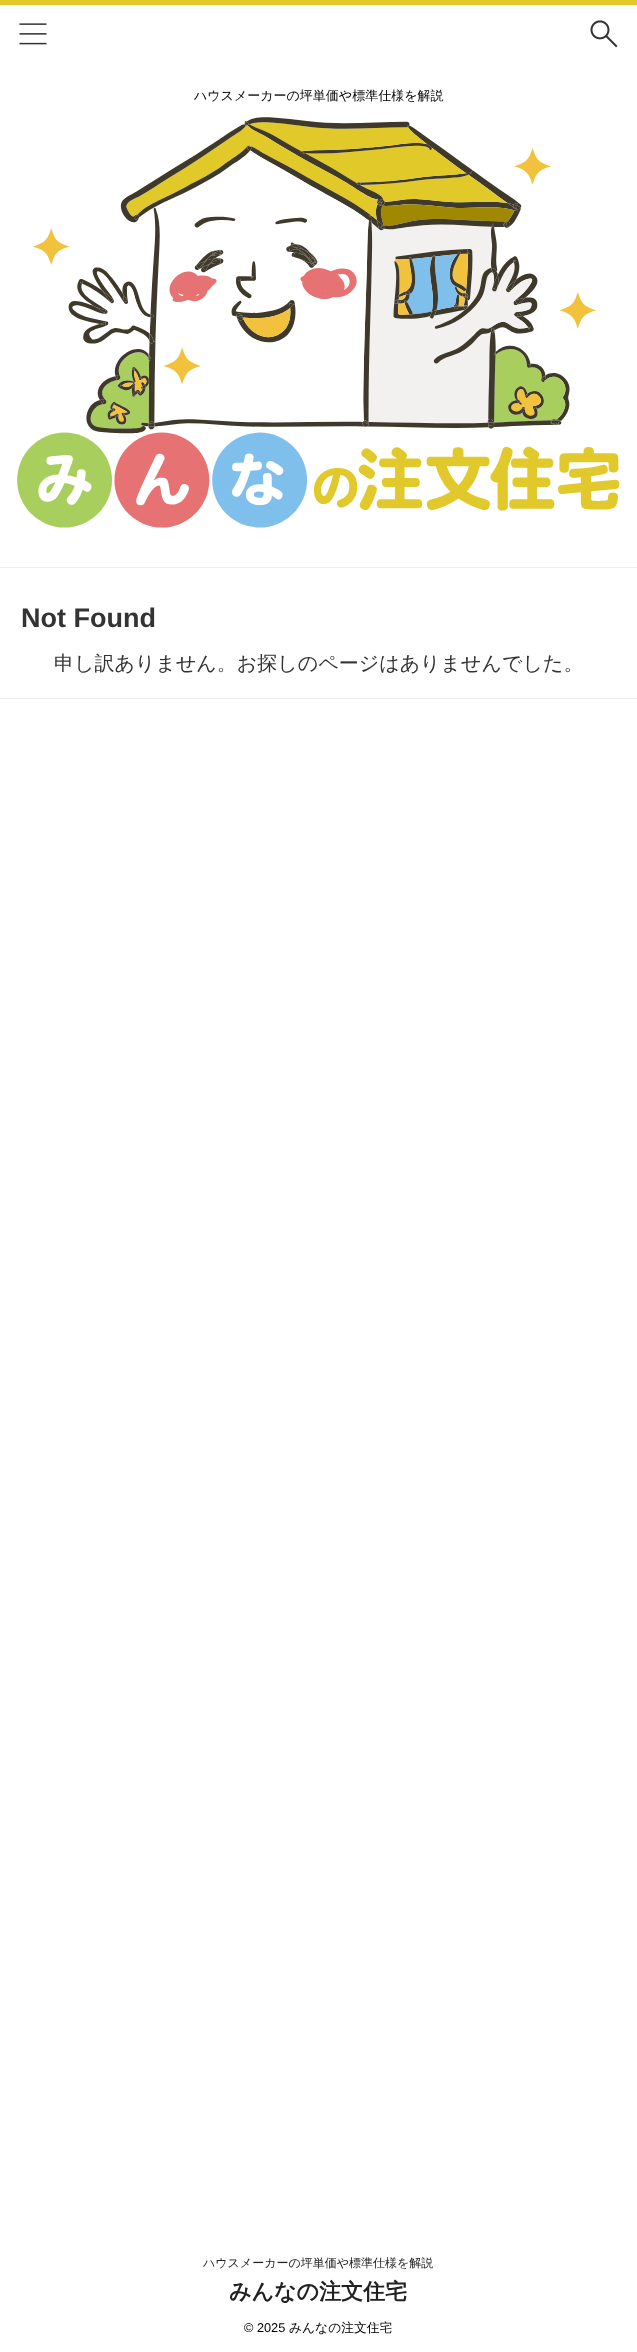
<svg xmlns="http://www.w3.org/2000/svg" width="637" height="2352">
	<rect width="100%" height="100%" fill="#FFFFFF" />
	<rect x="0" y="0" width="637" height="5" fill="#E0C929" />
	<image x="19" y="23" width="28" height="22" href="assets/img1.png" />
	<image x="590" y="20" width="28" height="28" href="assets/img2.png" />
	<text x="194" y="100" font-family="WenQuanYi Zen Hei" font-size="13" font-weight="500" fill="#000000">ハウスメーカーの坪単価や標準仕様を解説</text>
	<image x="17" y="117" width="603" height="411" href="assets/img3.png" />
	<rect x="-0.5" y="567.5" width="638" height="131" fill="none" stroke="#EEEEEE" />
	<text x="21" y="627" font-family="Liberation Sans" font-size="27" font-weight="700" fill="#333333">Not Found</text>
	<text x="54" y="670" font-family="WenQuanYi Zen Hei" font-size="20" font-weight="500" fill="#333333">申し訳ありません。お探しのページはありませんでした。</text>
	<text x="203" y="2267" font-family="WenQuanYi Zen Hei" font-size="12" font-weight="500" fill="#212121">ハウスメーカーの坪単価や標準仕様を解説</text>
	<text x="229" y="2299" font-family="WenQuanYi Zen Hei" font-size="22" font-weight="700" fill="#212121">みんなの注文住宅</text>
	<text x="244" y="2332" font-family="Liberation Sans" font-size="12.75" fill="#000000">© 2025</text>
	<text x="289" y="2332" font-family="WenQuanYi Zen Hei" font-size="12.75" font-weight="500" fill="#000000">みんなの注文住宅</text>
</svg>
